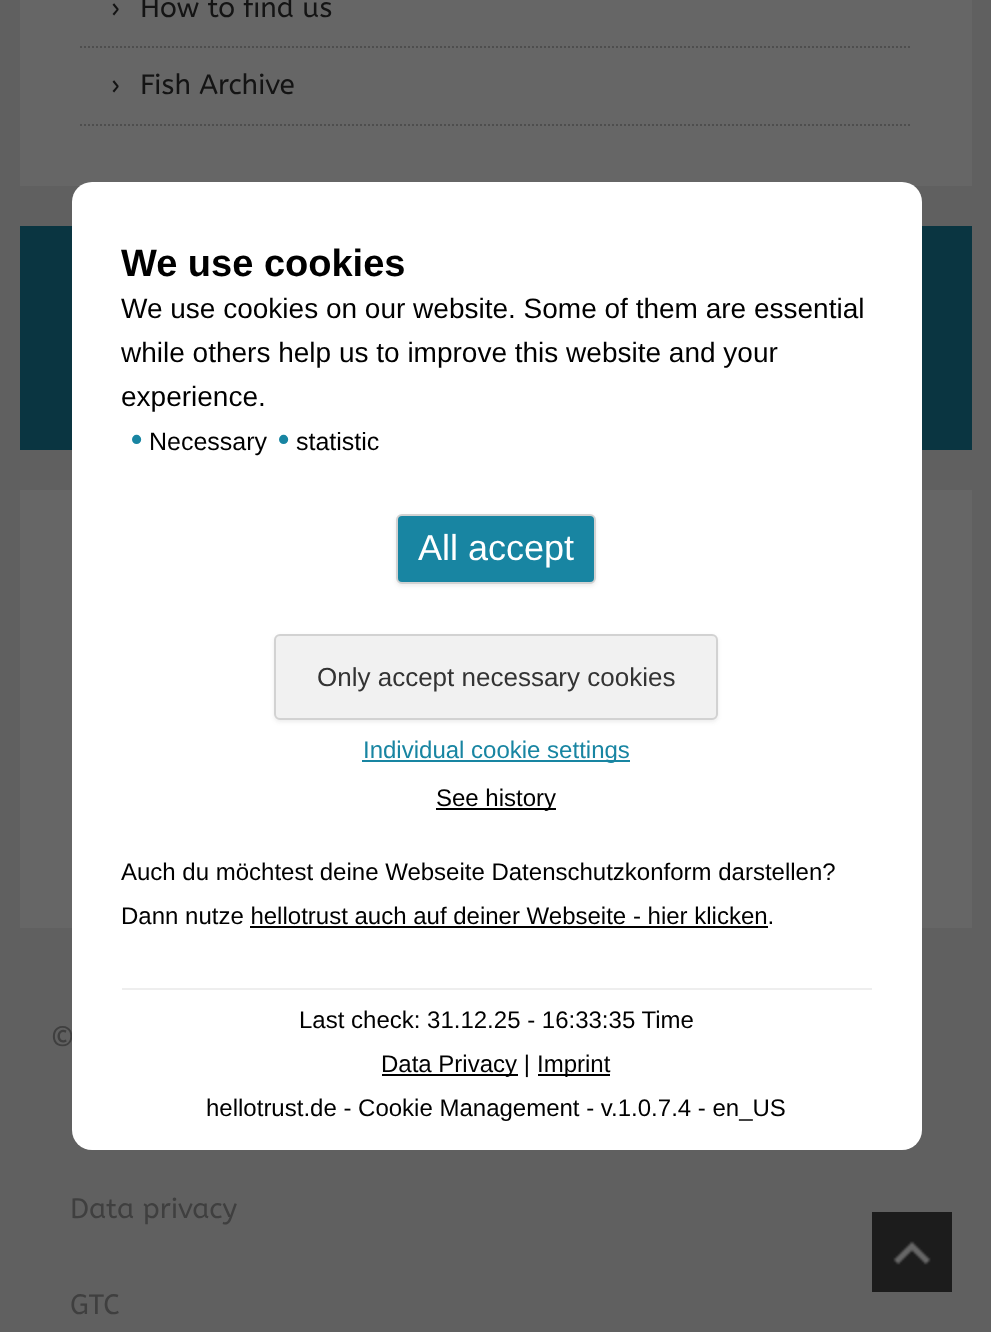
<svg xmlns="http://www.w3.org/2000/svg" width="991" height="1332">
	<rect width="100%" height="100%" fill="#606060" />
	<rect x="20" y="0" width="952" height="186" fill="#666666" />
	<path d="M80 47H912" fill="none" stroke="#4E4E4E" stroke-width="2" stroke-dasharray="2 2" />
	<g font-family="ABeeZee" font-size="28" fill="#141414">
		<text x="110" y="19">›</text>
		<text x="140" y="17">How to find us</text>
	</g>
	<path d="M80 125H912" fill="none" stroke="#4E4E4E" stroke-width="2" stroke-dasharray="2 2" />
	<g font-family="ABeeZee" font-size="28" fill="#141414">
		<text x="110" y="96">›</text>
		<text x="140" y="94">Fish Archive</text>
	</g>
	<rect x="20" y="226" width="952" height="224" fill="#0A3541" />
	<rect x="20" y="490" width="952" height="438" fill="#666666" />
	<g font-family="ABeeZee" font-size="28" fill="#3F3F3F">
		<text x="50" y="1046">©</text>
		<text x="70" y="1218">Data privacy</text>
		<text x="70" y="1314">GTC</text>
	</g>
	<rect x="72" y="182" width="850" height="968" rx="20" fill="#FFFFFF" />
	<text x="121" y="276" font-family="Liberation Sans" font-size="38" font-weight="700" fill="#000000">We use cookies</text>
	<g font-family="Liberation Sans" font-size="28" fill="#000000">
		<text x="121" y="318">We use cookies on our website. Some of them are essential</text>
		<text x="121" y="362">while others help us to improve this website and your</text>
		<text x="121" y="406">experience.</text>
	</g>
	<text x="131" y="450" font-family="Liberation Sans" font-size="32" font-weight="700" fill="#1885A2">•</text>
	<text x="149" y="450" font-family="Liberation Sans" font-size="25" fill="#000000">Necessary</text>
	<text x="278" y="450" font-family="Liberation Sans" font-size="32" font-weight="700" fill="#1885A2">•</text>
	<text x="296" y="450" font-family="Liberation Sans" font-size="25" fill="#000000">statistic</text>
	<rect x="396" y="516" width="200" height="70" rx="6" fill="#404040" fill-opacity="0.1" filter="blur(2px)" />
	<rect x="397" y="515" width="198" height="68" rx="5" fill="#1885A2" stroke="#D2D2D2" stroke-width="2" />
	<text x="418" y="560" font-family="Liberation Sans" font-size="36" fill="#FFFFFF">All accept</text>
	<rect x="274" y="636" width="444" height="86" rx="6" fill="#404040" fill-opacity="0.1" filter="blur(2px)" />
	<rect x="275" y="635" width="442" height="84" rx="5" fill="#F1F1F1" stroke="#D2D2D2" stroke-width="2" />
	<text x="317" y="686" font-family="Liberation Sans" font-size="26" fill="#333333">Only accept necessary cookies</text>
	<rect x="362" y="760" width="268" height="2" fill="#1885A2" />
	<text x="363" y="758" font-family="Liberation Sans" font-size="24" fill="#1885A2">Individual cookie settings</text>
	<rect x="436" y="808" width="120" height="2" fill="#000000" />
	<g font-family="Liberation Sans" font-size="24" fill="#000000">
		<text x="436" y="806">See history</text>
		<text x="121" y="880">Auch du möchtest deine Webseite Datenschutzkonform darstellen?</text>
		<text x="121" y="924">Dann nutze hellotrust auch auf deiner Webseite - hier klicken.</text>
	</g>
	<rect x="250" y="926" width="518" height="2" fill="#000000" />
	<rect x="122" y="988" width="750" height="2" fill="#EEEEEE" />
	<text x="299" y="1028" font-family="Liberation Sans" font-size="24" fill="#000000">Last check: 31.12.25 - 16:33:35 Time</text>
	<rect x="382" y="1074" width="136" height="2" fill="#000000" />
	<text x="381" y="1072" font-family="Liberation Sans" font-size="24" fill="#000000">Data Privacy |</text>
	<rect x="538" y="1074" width="72" height="2" fill="#000000" />
	<g font-family="Liberation Sans" font-size="24" fill="#000000">
		<text x="537" y="1072">Imprint</text>
		<text x="206" y="1116">hellotrust.de - Cookie Management - v.1.0.7.4 - en_US</text>
	</g>
	<image x="872" y="1212" width="80" height="80" href="assets/img1.png" />
</svg>
